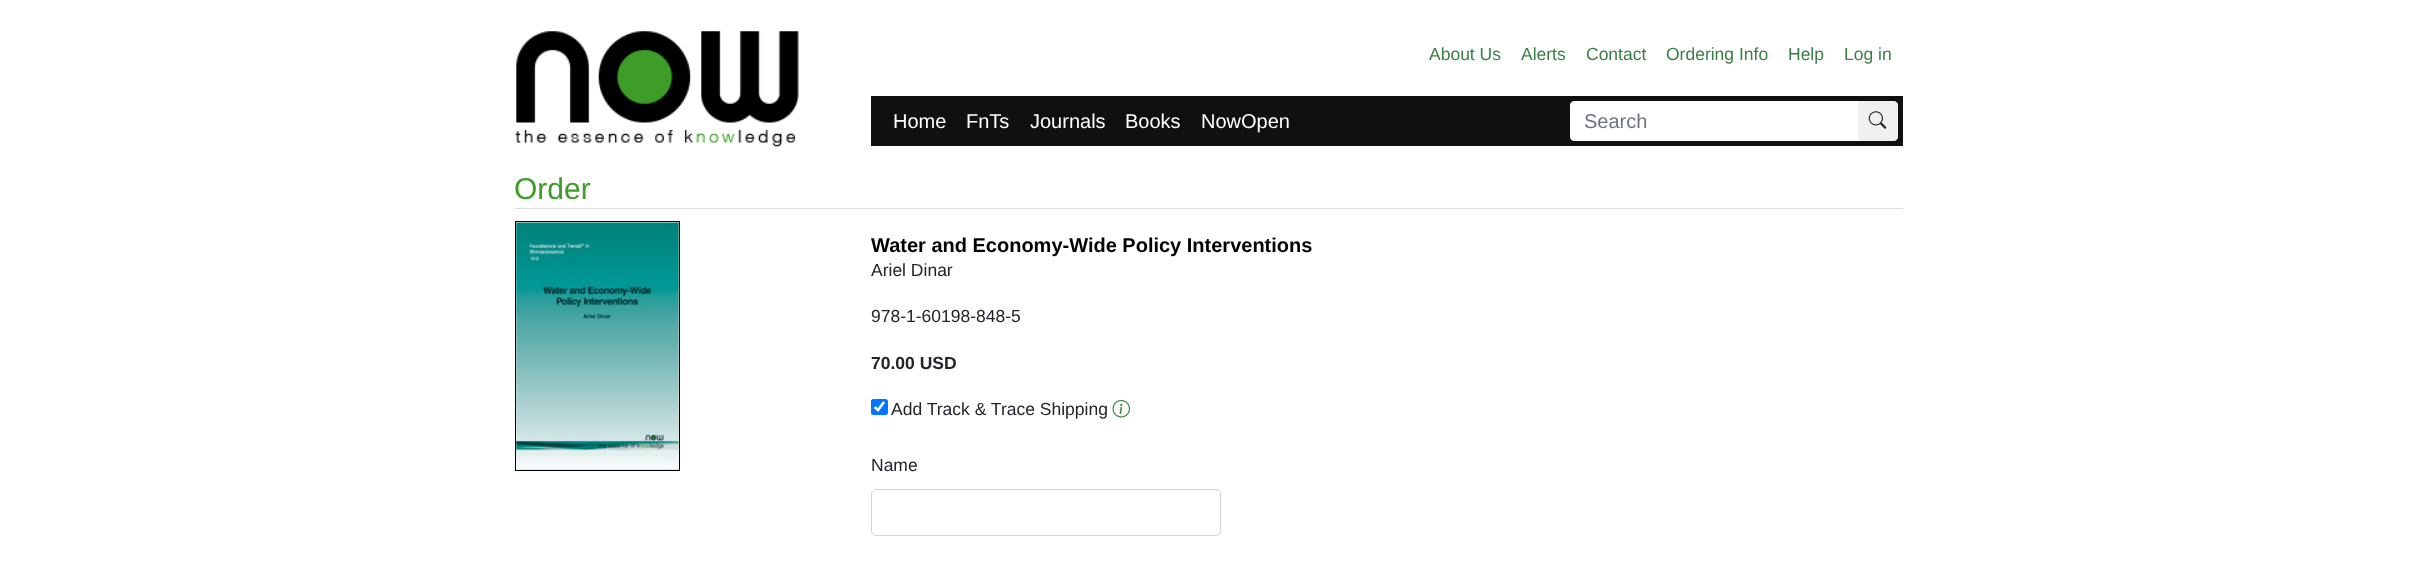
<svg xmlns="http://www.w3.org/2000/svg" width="2416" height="562">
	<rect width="100%" height="100%" fill="#FFFFFF" />
	<image x="515" y="31" width="284" height="116" href="assets/img1.png" />
	<g font-family="Liberation Sans" font-size="17.5" fill="#3A7D47">
		<text x="1429" y="60">About Us</text>
		<text x="1521" y="60">Alerts</text>
		<text x="1586" y="60">Contact</text>
		<text x="1666" y="60">Ordering Info</text>
		<text x="1788" y="60">Help</text>
		<text x="1844" y="60">Log in</text>
	</g>
	<rect x="871" y="96" width="1032" height="50" fill="#101010" />
	<g font-family="Liberation Sans" font-size="20" fill="#FFFFFF">
		<text x="893" y="128">Home</text>
		<text x="966" y="128">FnTs</text>
		<text x="1030" y="128">Journals</text>
		<text x="1125" y="128">Books</text>
		<text x="1201" y="128">NowOpen</text>
	</g>
	<path d="M1574 101H1859V141H1574C1572 141 1570 139 1570 137V105C1570 103 1572 101 1574 101Z" fill="#FFFFFF" />
	<text x="1584" y="128" font-family="Liberation Sans" font-size="20" fill="#6C757D">Search</text>
	<path d="M1858 101H1894C1896 101 1898 103 1898 105V137C1898 139 1896 141 1894 141H1858Z" fill="#F0F0F0" />
	<image x="1868" y="111" width="19" height="18" href="assets/img2.png" />
	<rect x="515" y="208" width="1388" height="1" fill="#DDDDDD" />
	<text x="514" y="199" font-family="Liberation Sans" font-size="30" fill="#3E9D28">Order</text>
	<rect x="515.5" y="221.5" width="164" height="249" fill="none" stroke="#000000" />
	<image x="516" y="222" width="163" height="248" href="assets/img3.png" />
	<text x="871" y="252" font-family="Liberation Sans" font-size="20" font-weight="700" fill="#000000">Water and Economy-Wide Policy Interventions</text>
	<g font-family="Liberation Sans" font-size="17.5" fill="#212529">
		<text x="871" y="276">Ariel Dinar</text>
		<text x="871" y="322">978-1-60198-848-5</text>
	</g>
	<text x="871" y="369" font-family="Liberation Sans" font-size="17.5" font-weight="700" fill="#212529">70.00 USD</text>
	<rect x="871" y="399" width="17" height="16" rx="2.5" fill="#0075FF" />
	<path d="M874.5 407L878 410L884 402" fill="none" stroke="#FFFFFF" stroke-width="2.6" />
	<text x="891" y="415" font-family="Liberation Sans" font-size="17.5" fill="#212529">Add Track &amp; Trace Shipping</text>
	<image x="1112" y="400" width="18" height="18" href="assets/img4.png" />
	<text x="871" y="471" font-family="Liberation Sans" font-size="17.5" fill="#212529">Name</text>
	<rect x="871.5" y="489.5" width="349" height="46" rx="4.5" fill="none" stroke="#CED4DA" />
</svg>
